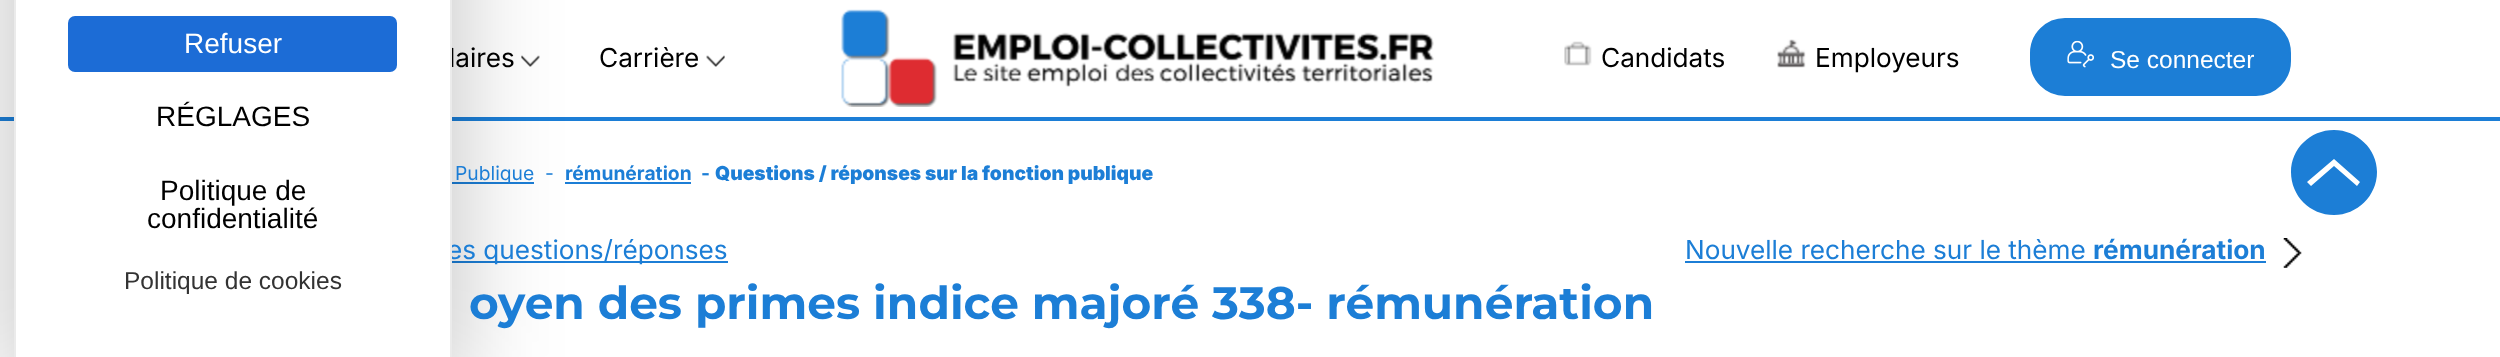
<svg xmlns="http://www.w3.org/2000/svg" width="2500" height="357">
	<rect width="100%" height="100%" fill="#FFFFFF" />
	<rect x="0" y="117" width="2500" height="4" fill="#1C7ED6" />
	<image x="521" y="55" width="19" height="12" href="assets/img1.png" />
	<rect x="452" y="182" width="82" height="2" fill="#1C7ED6" />
	<rect x="565" y="182" width="126" height="2" fill="#1C7ED6" />
	<rect x="452" y="261" width="276" height="2" fill="#1C7ED6" />
	<rect x="14" y="-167" width="438" height="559" rx="9" fill="#000000" fill-opacity="0.25" filter="blur(52.5px)" />
	<text x="447" y="259" font-family="'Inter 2'" font-size="26.25" fill="#1C7ED6">es questions/réponses</text>
	<rect x="16" y="0" width="434" height="357" fill="#FFFFFF" />
	<text x="449" y="67" font-family="'Inter 2'" font-size="26.25" fill="#000000">laires</text>
	<path d="M23-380H443C448-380 452-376 452-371V357H14V-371C14-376 18-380 23-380ZM23-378H443C447-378 450-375 450-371V357H16V-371C16-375 19-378 23-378Z" fill="#EBEBEB" fill-rule="evenodd" />
	<rect x="68" y="16" width="329" height="56" rx="7" fill="#1C6CD6" />
	<text x="184" y="53" font-family="Liberation Sans" font-size="28" fill="#FFFFFF">Refuser</text>
	<g font-family="Liberation Sans" font-size="28" fill="#000000">
		<text x="156" y="126">RÉGLAGES</text>
		<text x="160" y="200">Politique de</text>
		<text x="147" y="228">confidentialité</text>
	</g>
	<text x="124" y="289" font-family="Liberation Sans" font-size="24.5" fill="#333333">Politique de cookies</text>
	<text x="599" y="67" font-family="'Inter 2'" font-size="26.25" fill="#000000">Carrière</text>
	<image x="706" y="55" width="19" height="12" href="assets/img2.png" />
	<image x="841" y="9" width="593" height="98" href="assets/img3.png" />
	<image x="1564" y="41" width="28" height="25" href="assets/img4.png" />
	<text x="1601" y="67" font-family="'Inter 2'" font-size="26.25" fill="#000000">Candidats</text>
	<image x="1777" y="39" width="29" height="29" href="assets/img5.png" />
	<text x="1815" y="67" font-family="'Inter 2'" font-size="26.25" fill="#000000">Employeurs</text>
	<rect x="2031" y="19" width="259" height="76" rx="34" fill="#1C7ED6" stroke="#1C7ED6" stroke-width="2" />
	<image x="2067" y="40" width="27" height="28" href="assets/img6.png" />
	<text x="2110" y="68" font-family="Liberation Sans" font-size="24.5" fill="#FFFFFF">Se connecter</text>
	<g font-family="Inter" font-size="19.25" fill="#1C7ED6">
		<text x="455" y="180">Publique</text>
		<text x="545" y="180">-</text>
	</g>
	<g font-family="Inter" font-size="19.25" font-weight="700" fill="#1C7ED6">
		<text x="565" y="180">rémunération</text>
		<text x="701" y="180">-</text>
	</g>
	<text x="715" y="180" font-family="Inter" font-size="19.25" font-weight="900" fill="#1C7ED6">Questions / réponses sur la fonction publique</text>
	<text x="1685" y="259" font-family="'Inter 2'" font-size="26.25" fill="#1C7ED6">Nouvelle recherche sur le thème</text>
	<rect x="1685" y="261" width="581" height="2" fill="#1C7ED6" />
	<text x="2093" y="259" font-family="Inter" font-size="26.25" font-weight="700" fill="#1C7ED6">rémunération</text>
	<image x="2283" y="238" width="19" height="30" href="assets/img7.png" />
	<text x="469" y="319" font-family="Montserrat" font-size="45.5" font-weight="700" fill="#1C7ED6">oyen des primes indice majoré 338- rémunération</text>
	<path d="M2334 130C2310 130 2291 149 2291 172C2291 196 2310 215 2334 215C2357 215 2377 196 2377 172C2377 149 2357 130 2334 130ZM2357 186L2334 166L2311 186L2307 182L2334 159L2360 182Z" fill="#1C7ED6" />
</svg>
